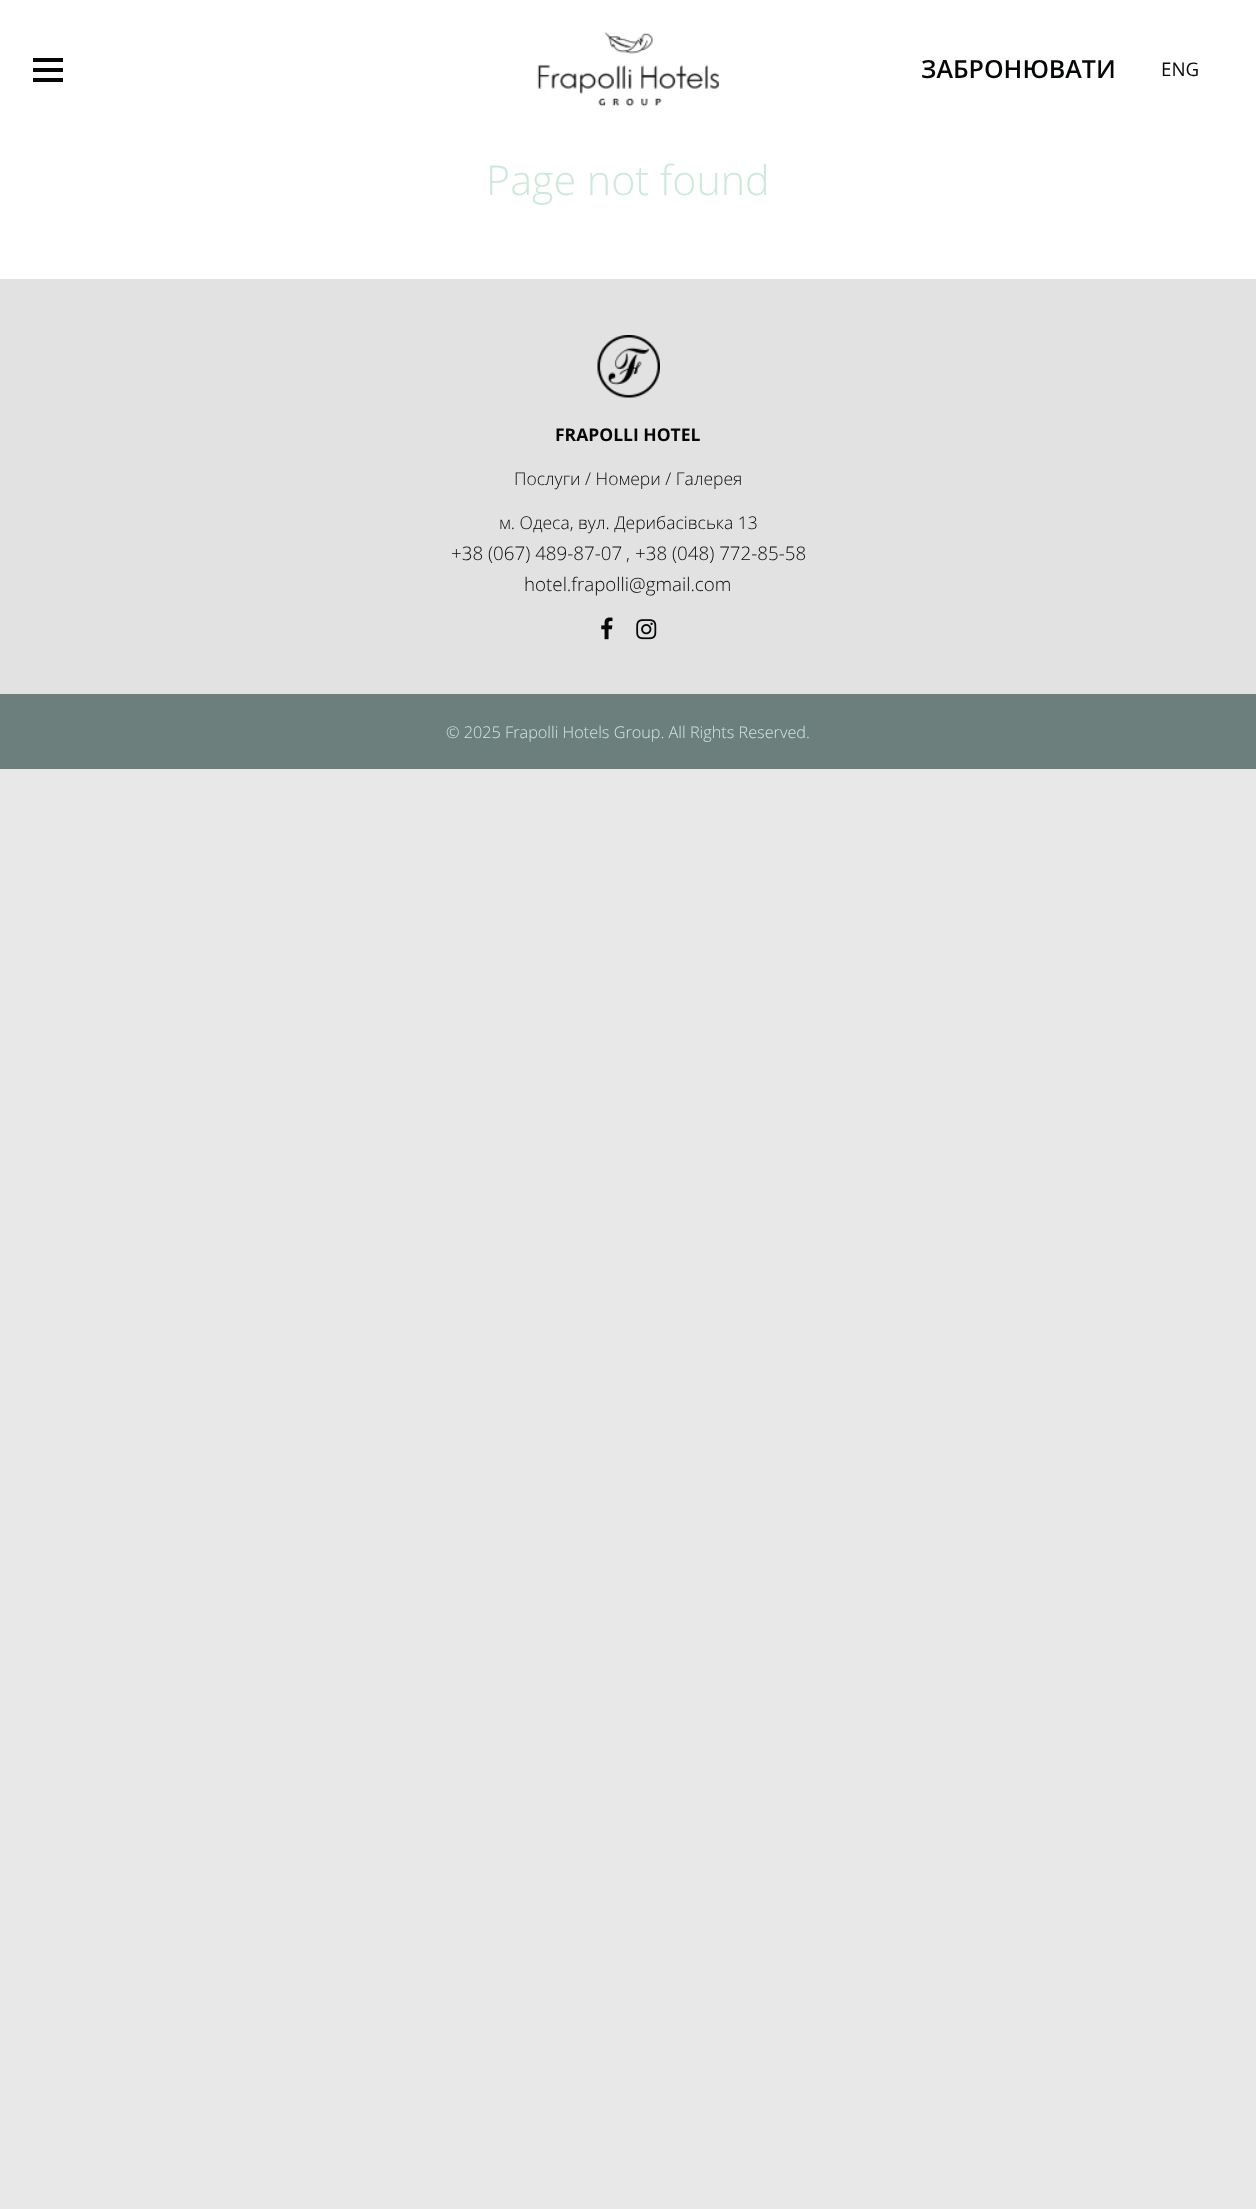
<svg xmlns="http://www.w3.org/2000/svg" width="1256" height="2209">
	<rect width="100%" height="100%" fill="#E8E8E8" />
	<rect x="0" y="0" width="1256" height="279" fill="#FFFFFF" />
	<rect x="33" y="68" width="30" height="4" fill="#050708" />
	<rect x="33" y="58" width="30" height="4" fill="#050708" />
	<rect x="33" y="78" width="30" height="4" fill="#050708" />
	<image x="537" y="32" width="183" height="75" href="assets/img1.png" />
	<text x="921" y="78" font-family="Open Sans" font-size="25" font-weight="600" fill="#050708">ЗАБРОНЮВАТИ</text>
	<text x="1161" y="76" font-family="Open Sans" font-size="18.75" fill="#050708">ENG</text>
	<text x="486" y="195" font-family="Open Sans" font-size="41.25" font-weight="300" fill="#CEE9DC">Page not found</text>
	<rect x="0" y="279" width="1256" height="415" fill="#E2E2E2" />
	<image x="597" y="335" width="63" height="63" href="assets/img2.png" />
	<text x="555" y="441" font-family="Open Sans" font-size="17.5" font-weight="700" fill="#050708">FRAPOLLI HOTEL</text>
	<g font-family="Open Sans" font-size="17.5" font-weight="300" fill="#050708">
		<text x="514" y="485">Послуги / Номери / Галерея</text>
		<text x="499" y="529">м. Одеса, вул. Дерибасівська 13</text>
	</g>
	<text x="451" y="560" font-family="Open Sans" font-size="18.75" font-weight="300" fill="#050708">+38 (067) 489-87-07</text>
	<text x="626" y="560" font-family="Open Sans" font-size="17.5" font-weight="300" fill="#050708">,</text>
	<g font-family="Open Sans" font-size="18.75" font-weight="300" fill="#050708">
		<text x="635" y="560">+38 (048) 772-85-58</text>
		<text x="524" y="591">hotel.frapolli@gmail.com</text>
	</g>
	<image x="601" y="617" width="12" height="23" href="assets/img3.png" />
	<image x="636" y="619" width="21" height="21" href="assets/img4.png" />
	<rect x="0" y="694" width="1256" height="75" fill="#6C7F7D" />
	<text x="446" y="738" font-family="Open Sans" font-size="16.25" font-weight="300" fill="#CEE9DC">© 2025 Frapolli Hotels Group. All Rights Reserved.</text>
</svg>
